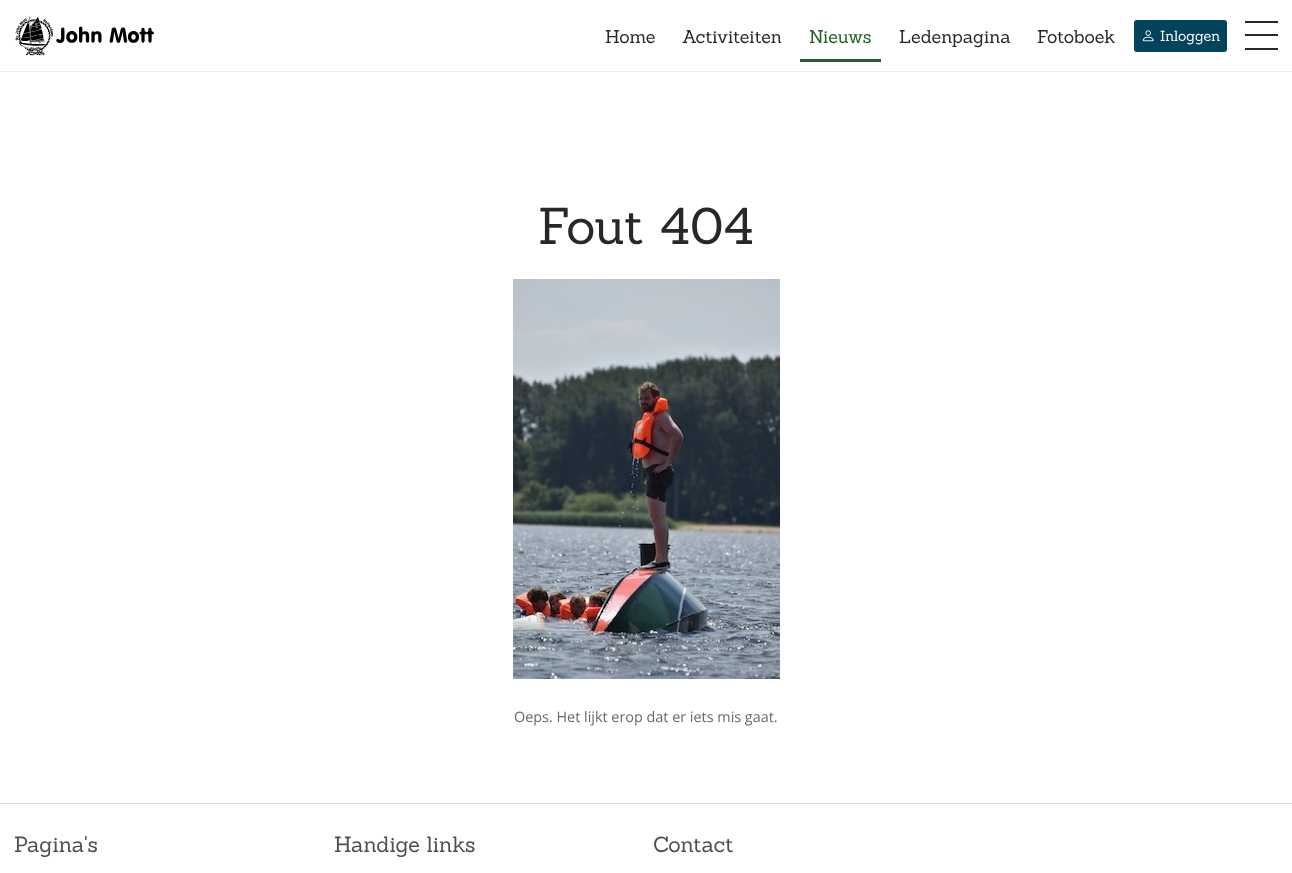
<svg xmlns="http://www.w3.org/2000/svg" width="1292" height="873">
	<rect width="100%" height="100%" fill="#FFFFFF" />
	<rect x="0" y="71" width="1292" height="1" fill="#EEEEED" />
	<image x="15" y="16" width="139" height="40" href="assets/img1.png" />
	<g font-family="Sanchez" font-size="18" fill="#282828">
		<text x="605" y="43">Home</text>
		<text x="682" y="43">Activiteiten</text>
	</g>
	<rect x="800" y="59" width="81" height="3" fill="#23602B" />
	<text x="809" y="43" font-family="Sanchez" font-size="18" fill="#23602B">Nieuws</text>
	<g font-family="Sanchez" font-size="18" fill="#282828">
		<text x="899" y="43">Ledenpagina</text>
		<text x="1037" y="43">Fotoboek</text>
	</g>
	<rect x="1134" y="20" width="93" height="32" rx="3" fill="#03435D" />
	<image x="1142" y="30" width="12" height="12" href="assets/img2.png" />
	<text x="1160" y="41" font-family="Sanchez" font-size="14.4" fill="#FFFFFF">Inloggen</text>
	<rect x="1245" y="21" width="33" height="2" fill="#282828" />
	<rect x="1245" y="34" width="33" height="2" fill="#282828" />
	<rect x="1245" y="48" width="33" height="2" fill="#282828" />
	<text x="538" y="244" font-family="Sanchez" font-size="50.5" fill="#282828">Fout 404</text>
	<image x="513" y="279" width="267" height="400" href="assets/img3.png" />
	<text x="514" y="722" font-family="Open Sans" font-size="14.4" fill="#686867">Oeps. Het lijkt erop dat er iets mis gaat.</text>
	<rect x="0" y="803" width="1292" height="1" fill="#DEDEDE" />
	<g font-family="Sanchez" font-size="21.5" fill="#4F4F4E">
		<text x="14" y="852">Pagina's</text>
		<text x="334" y="852">Handige links</text>
		<text x="653" y="852">Contact</text>
	</g>
</svg>
